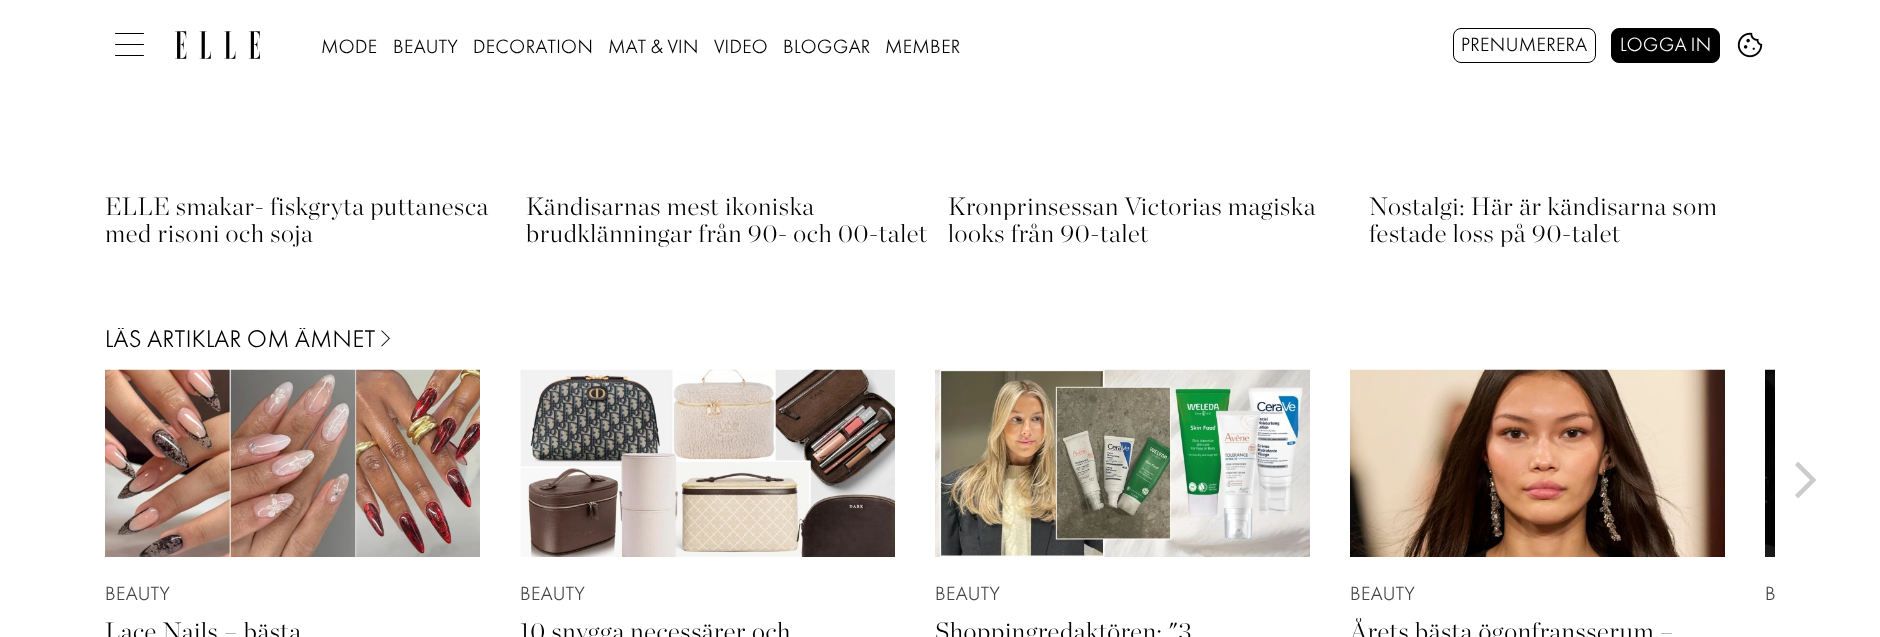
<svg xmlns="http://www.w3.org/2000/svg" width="1880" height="637">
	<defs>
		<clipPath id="clip1"><rect x="105" y="328" width="1670" height="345" /></clipPath>
		<clipPath id="clip2"><rect x="1350" y="618" width="375" height="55" /></clipPath>
	</defs>
	<rect width="100%" height="100%" fill="#FFFFFF" />
	<rect x="115" y="33" width="29" height="1" rx="0.5" fill="#000000" />
	<rect x="115" y="44" width="29" height="1" rx="0.5" fill="#000000" />
	<rect x="115" y="55" width="29" height="1" rx="0.5" fill="#000000" />
	<image x="175" y="31" width="85" height="28" href="assets/img1.png" />
	<g font-family="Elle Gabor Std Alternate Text" font-size="20" letter-spacing="0.4" fill="#000000">
		<text x="321" y="53">MODE</text>
		<text x="393" y="53">BEAUTY</text>
		<text x="473" y="53">DECORATION</text>
		<text x="608" y="53">MAT &amp; VIN</text>
		<text x="714" y="53">VIDEO</text>
		<text x="783" y="53">BLOGGAR</text>
		<text x="885" y="53">MEMBER</text>
	</g>
	<rect x="1453.5" y="28.5" width="142" height="34" rx="7.5" fill="none" stroke="#000000" />
	<text x="1461" y="51" font-family="Elle Gabor Std Alternate Text" font-size="20" letter-spacing="0.4" fill="#000000">PRENUMERERA</text>
	<rect x="1611.5" y="28.5" width="108" height="34" rx="7.5" fill="#000000" stroke="#000000" />
	<text x="1620" y="51" font-family="Elle Gabor Std Alternate Text" font-size="20" letter-spacing="0.4" fill="#FFFFFF">LOGGA IN</text>
	<image x="1737" y="32" width="26" height="26" href="assets/img2.png" />
	<g font-family="'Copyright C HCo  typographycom'" font-size="25" font-weight="300" letter-spacing="0.6" fill="#000000">
		<text x="105" y="215">ELLE smakar- fiskgryta puttanesca</text>
		<text x="105" y="242">med risoni och soja</text>
		<text x="526" y="215">Kändisarnas mest ikoniska</text>
		<text x="526" y="242">brudklänningar från 90- och 00-talet</text>
		<text x="948" y="215">Kronprinsessan Victorias magiska</text>
		<text x="948" y="242">looks från 90-talet</text>
		<text x="1369" y="215">Nostalgi: Här är kändisarna som</text>
		<text x="1369" y="242">festade loss på 90-talet</text>
	</g>
	<g clip-path="url(#clip1)">
		<text x="105" y="347" font-family="Elle Gabor Std Alternate Text" font-size="25" letter-spacing="0.6" fill="#000000">LÄS ARTIKLAR OM ÄMNET</text>
	</g>
	<image x="381" y="330" width="9" height="17" href="assets/img3.png" />
	<image x="105" y="369" width="375" height="188" href="assets/img4.png" />
	<text x="105" y="600" font-family="Elle Gabor Std Alternate Text" font-size="20" letter-spacing="0.4" fill="#454545">BEAUTY</text>
	<text x="105" y="640" font-family="'Copyright C HCo  typographycom'" font-size="25" font-weight="300" letter-spacing="0.6" fill="#000000">Lace Nails – bästa</text>
	<image x="520" y="369" width="375" height="188" href="assets/img5.png" />
	<text x="520" y="600" font-family="Elle Gabor Std Alternate Text" font-size="20" letter-spacing="0.4" fill="#454545">BEAUTY</text>
	<text x="520" y="640" font-family="'Copyright C HCo  typographycom'" font-size="25" font-weight="300" letter-spacing="0.6" fill="#000000">10 snygga necessärer och</text>
	<image x="935" y="369" width="375" height="188" href="assets/img6.png" />
	<text x="935" y="600" font-family="Elle Gabor Std Alternate Text" font-size="20" letter-spacing="0.4" fill="#454545">BEAUTY</text>
	<text x="935" y="640" font-family="'Copyright C HCo  typographycom'" font-size="25" font-weight="300" letter-spacing="0.6" fill="#000000">Shoppingredaktören: "3</text>
	<image x="1350" y="369" width="375" height="188" href="assets/img7.png" />
	<text x="1350" y="600" font-family="Elle Gabor Std Alternate Text" font-size="20" letter-spacing="0.4" fill="#454545">BEAUTY</text>
	<g clip-path="url(#clip2)">
		<text x="1350" y="640" font-family="'Copyright C HCo  typographycom'" font-size="25" font-weight="300" letter-spacing="0.6" fill="#000000">Årets bästa ögonfransserum –</text>
	</g>
	<image x="1765" y="369" width="10" height="188" href="assets/img8.png" />
	<text x="1765" y="600" font-family="Elle Gabor Std Alternate Text" font-size="20" letter-spacing="0.4" fill="#454545">B</text>
	<path d="M1798 498.5L1795 495L1810 480L1795 465L1798 461.5L1816.5 480Z" fill="#CCCCCC" />
</svg>
